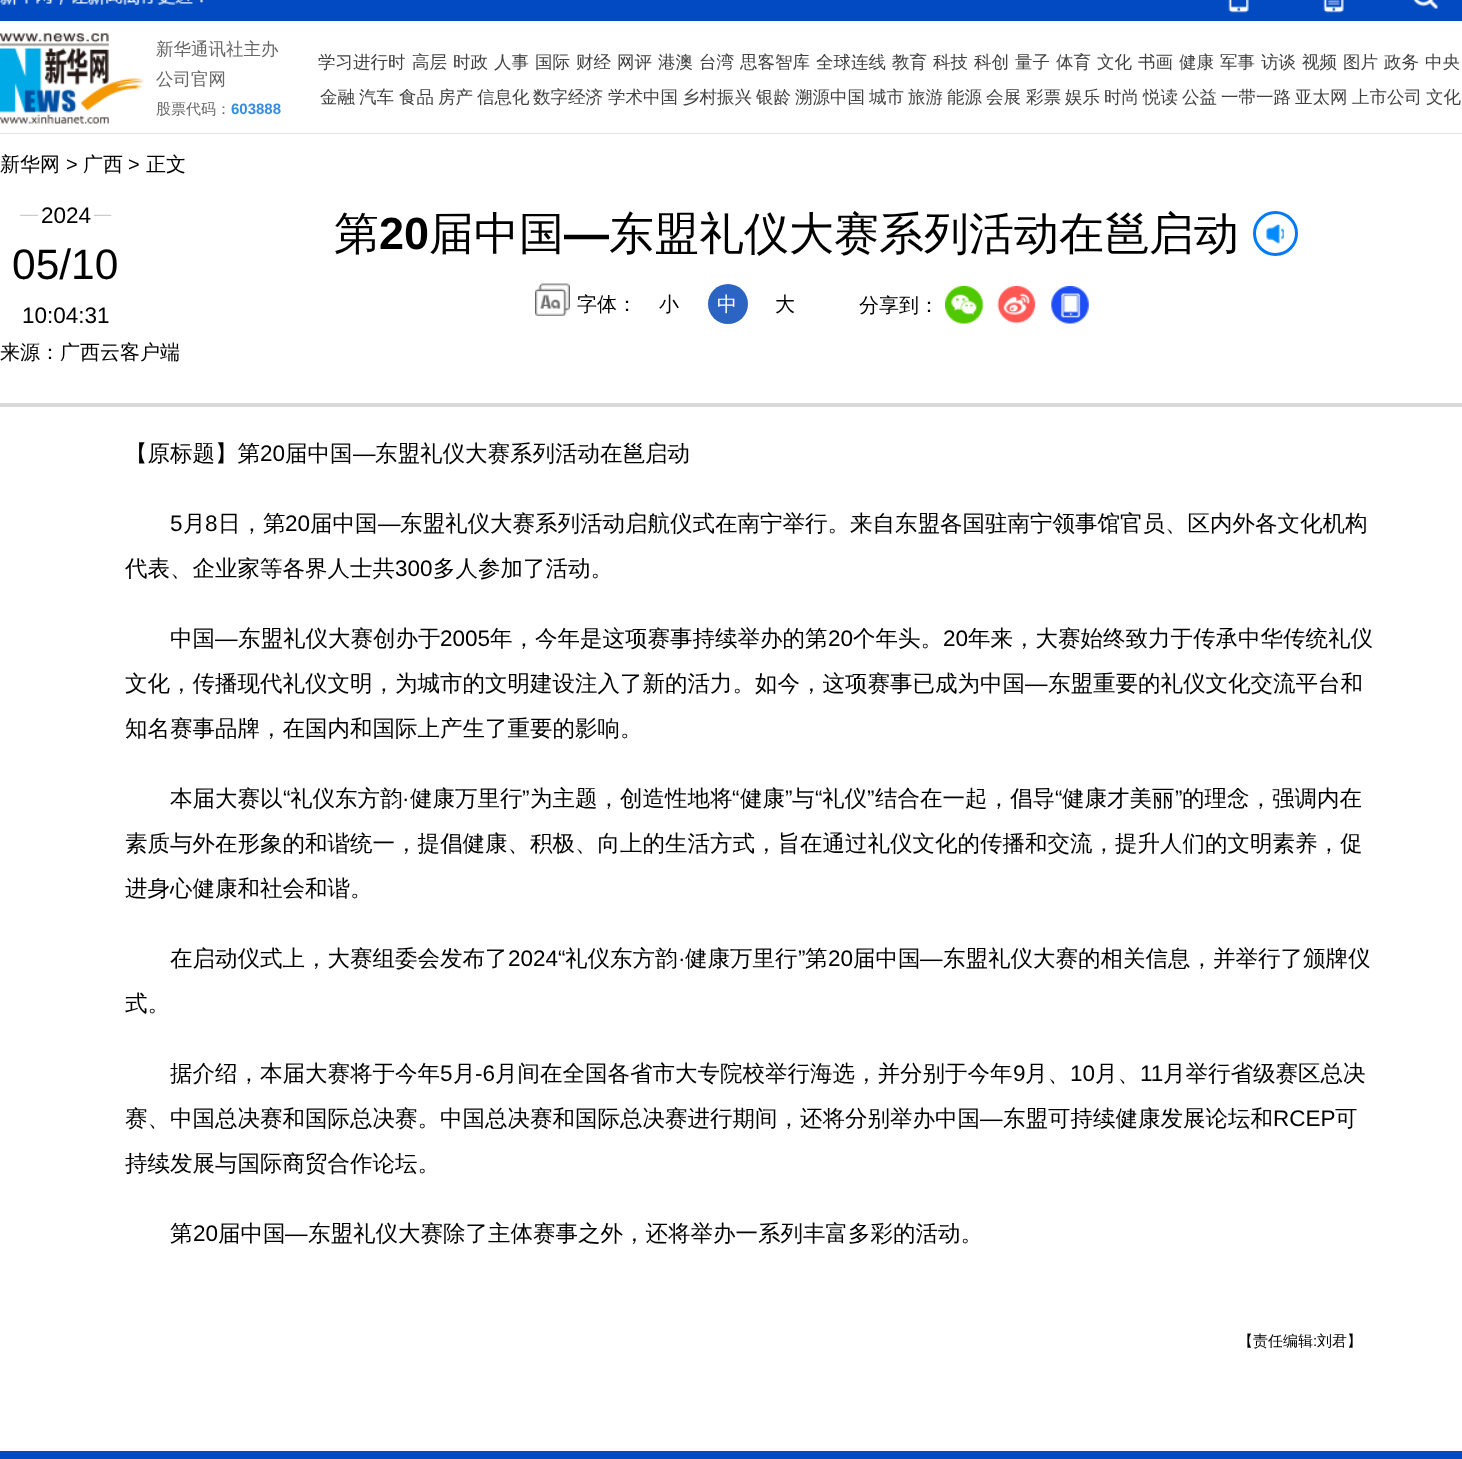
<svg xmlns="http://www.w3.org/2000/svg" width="1462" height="1459">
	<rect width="100%" height="100%" fill="#FFFFFF" />
	<rect x="0" y="0" width="1462" height="21" fill="#024AC2" />
	<image x="0" y="0" width="204" height="5" href="assets/img1.png" />
	<image x="1228" y="0" width="21" height="13" href="assets/img2.png" />
	<image x="1323" y="0" width="21" height="13" href="assets/img3.png" />
	<image x="1413" y="0" width="25" height="9" href="assets/img4.png" />
	<rect x="0" y="133" width="1462" height="1" fill="#E4E4E4" />
	<image x="0" y="33" width="144" height="91" href="assets/img5.png" />
	<g font-family="WenQuanYi Zen Hei" font-size="17.5" font-weight="500" fill="#666666">
		<text x="156" y="55">新华通讯社主办</text>
		<text x="156" y="85">公司官网</text>
	</g>
	<text x="156" y="114" font-family="WenQuanYi Zen Hei" font-size="15" font-weight="500" fill="#666666">股票代码：</text>
	<text x="231" y="114" font-family="Liberation Sans" font-size="15" font-weight="700" fill="#378DE4">603888</text>
	<g font-family="WenQuanYi Zen Hei" font-size="17.5" font-weight="500" fill="#404040">
		<text x="318" y="68">学习进行时</text>
		<text x="412" y="68">高层</text>
		<text x="453" y="68">时政</text>
		<text x="494" y="68">人事</text>
		<text x="535" y="68">国际</text>
		<text x="576" y="68">财经</text>
		<text x="617" y="68">网评</text>
		<text x="658" y="68">港澳</text>
		<text x="699" y="68">台湾</text>
		<text x="740" y="68">思客智库</text>
		<text x="816" y="68">全球连线</text>
		<text x="892" y="68">教育</text>
		<text x="933" y="68">科技</text>
		<text x="974" y="68">科创</text>
		<text x="1015" y="68">量子</text>
		<text x="1056" y="68">体育</text>
		<text x="1097" y="68">文化</text>
		<text x="1138" y="68">书画</text>
		<text x="1179" y="68">健康</text>
		<text x="1220" y="68">军事</text>
		<text x="1261" y="68">访谈</text>
		<text x="1302" y="68">视频</text>
		<text x="1343" y="68">图片</text>
		<text x="1384" y="68">政务</text>
		<text x="1425" y="68">中央</text>
		<text x="320" y="103">金融</text>
		<text x="359" y="103">汽车</text>
		<text x="399" y="103">食品</text>
		<text x="438" y="103">房产</text>
		<text x="477" y="103">信息化</text>
		<text x="533" y="103">数字经济</text>
		<text x="608" y="103">学术中国</text>
		<text x="682" y="103">乡村振兴</text>
		<text x="756" y="103">银龄</text>
		<text x="795" y="103">溯源中国</text>
		<text x="869" y="103">城市</text>
		<text x="908" y="103">旅游</text>
		<text x="947" y="103">能源</text>
		<text x="986" y="103">会展</text>
		<text x="1026" y="103">彩票</text>
		<text x="1065" y="103">娱乐</text>
		<text x="1104" y="103">时尚</text>
		<text x="1143" y="103">悦读</text>
		<text x="1182" y="103">公益</text>
		<text x="1221" y="103">一带一路</text>
		<text x="1295" y="103">亚太网</text>
		<text x="1352" y="103">上市公司</text>
		<text x="1426" y="103">文化</text>
	</g>
	<rect x="0" y="403" width="1462" height="4" fill="#D9D9D9" />
	<text x="0" y="171" font-family="WenQuanYi Zen Hei" font-size="20" font-weight="500" fill="#000000">新华网</text>
	<text x="66" y="171" font-family="Liberation Sans" font-size="20" fill="#000000">&gt;</text>
	<text x="83" y="171" font-family="WenQuanYi Zen Hei" font-size="20" font-weight="500" fill="#000000">广西</text>
	<text x="128" y="171" font-family="Liberation Sans" font-size="20" fill="#000000">&gt;</text>
	<text x="146" y="171" font-family="WenQuanYi Zen Hei" font-size="20" font-weight="500" fill="#000000">正文</text>
	<image x="20" y="214" width="92" height="2" href="assets/img6.png" />
	<rect x="38" y="214" width="56" height="2" fill="#FFFFFF" />
	<text x="41" y="223" font-family="Liberation Sans" font-size="22.5" fill="#000000">2024</text>
	<text x="12" y="279" font-family="Liberation Sans" font-size="42.5" fill="#000000">05/10</text>
	<text x="22" y="323" font-family="Liberation Sans" font-size="22.5" fill="#000000">10:04:31</text>
	<text x="334" y="249" font-family="WenQuanYi Zen Hei" font-size="45" font-weight="500" fill="#000000">第</text>
	<text x="379" y="249" font-family="Liberation Sans" font-size="45" font-weight="700" fill="#000000">20</text>
	<text x="429" y="249" font-family="WenQuanYi Zen Hei" font-size="45" font-weight="500" fill="#000000">届中国</text>
	<text x="564" y="249" font-family="Liberation Sans" font-size="45" font-weight="700" fill="#000000">—</text>
	<text x="609" y="249" font-family="WenQuanYi Zen Hei" font-size="45" font-weight="500" fill="#000000">东盟礼仪大赛系列活动在邕启动</text>
	<circle cx="1275.5" cy="233.5" r="21" fill="none" stroke="#027BFB" stroke-width="3" />
	<image x="1266" y="224" width="18" height="20" href="assets/img7.png" />
	<image x="535" y="283" width="35" height="33" href="assets/img8.png" />
	<g font-family="WenQuanYi Zen Hei" font-size="20" font-weight="500" fill="#000000">
		<text x="577" y="311">字体：</text>
		<text x="659" y="311">小</text>
	</g>
	<circle cx="728" cy="304" r="20" fill="#2C64C3" />
	<text x="717" y="311" font-family="WenQuanYi Zen Hei" font-size="20" font-weight="500" fill="#FFFFFF">中</text>
	<g font-family="WenQuanYi Zen Hei" font-size="20" font-weight="500" fill="#000000">
		<text x="775" y="311">大</text>
		<text x="859" y="312">分享到：</text>
	</g>
	<image x="945" y="286" width="39" height="38" href="assets/img9.png" />
	<image x="997" y="286" width="39" height="38" href="assets/img10.png" />
	<image x="1051" y="286" width="38" height="38" href="assets/img11.png" />
	<text x="0" y="359" font-family="WenQuanYi Zen Hei" font-size="20" font-weight="500" fill="#000000">来源：广西云客户端</text>
	<text x="125" y="461" font-family="WenQuanYi Zen Hei" font-size="22.5" font-weight="500" fill="#000000">【原标题】第</text>
	<text x="260" y="461" font-family="Liberation Sans" font-size="22.5" fill="#000000">20</text>
	<text x="285" y="461" font-family="WenQuanYi Zen Hei" font-size="22.5" font-weight="500" fill="#000000">届中国</text>
	<text x="353" y="461" font-family="Liberation Sans" font-size="22.5" fill="#000000">—</text>
	<text x="375" y="461" font-family="WenQuanYi Zen Hei" font-size="22.5" font-weight="500" fill="#000000">东盟礼仪大赛系列活动在邕启动</text>
	<text x="170" y="531" font-family="Liberation Sans" font-size="22.5" fill="#000000">5</text>
	<text x="183" y="531" font-family="WenQuanYi Zen Hei" font-size="22.5" font-weight="500" fill="#000000">月</text>
	<text x="205" y="531" font-family="Liberation Sans" font-size="22.5" fill="#000000">8</text>
	<text x="218" y="531" font-family="WenQuanYi Zen Hei" font-size="22.5" font-weight="500" fill="#000000">日，第</text>
	<text x="285" y="531" font-family="Liberation Sans" font-size="22.5" fill="#000000">20</text>
	<text x="310" y="531" font-family="WenQuanYi Zen Hei" font-size="22.5" font-weight="500" fill="#000000">届中国</text>
	<text x="378" y="531" font-family="Liberation Sans" font-size="22.5" fill="#000000">—</text>
	<g font-family="WenQuanYi Zen Hei" font-size="22.5" font-weight="500" fill="#000000">
		<text x="400" y="531">东盟礼仪大赛系列活动启航仪式在南宁举行。来自东盟各国驻南宁领事馆官员、区内外各文化机构</text>
		<text x="125" y="576">代表、企业家等各界人士共</text>
	</g>
	<text x="395" y="576" font-family="Liberation Sans" font-size="22.5" fill="#000000">300</text>
	<g font-family="WenQuanYi Zen Hei" font-size="22.5" font-weight="500" fill="#000000">
		<text x="433" y="576">多人参加了活动。</text>
		<text x="170" y="646">中国</text>
	</g>
	<text x="215" y="646" font-family="Liberation Sans" font-size="22.5" fill="#000000">—</text>
	<text x="238" y="646" font-family="WenQuanYi Zen Hei" font-size="22.5" font-weight="500" fill="#000000">东盟礼仪大赛创办于</text>
	<text x="440" y="646" font-family="Liberation Sans" font-size="22.5" fill="#000000">2005</text>
	<text x="490" y="646" font-family="WenQuanYi Zen Hei" font-size="22.5" font-weight="500" fill="#000000">年，今年是这项赛事持续举办的第</text>
	<text x="828" y="646" font-family="Liberation Sans" font-size="22.5" fill="#000000">20</text>
	<text x="853" y="646" font-family="WenQuanYi Zen Hei" font-size="22.5" font-weight="500" fill="#000000">个年头。</text>
	<text x="943" y="646" font-family="Liberation Sans" font-size="22.5" fill="#000000">20</text>
	<g font-family="WenQuanYi Zen Hei" font-size="22.5" font-weight="500" fill="#000000">
		<text x="968" y="646">年来，大赛始终致力于传承中华传统礼仪</text>
		<text x="125" y="691">文化，传播现代礼仪文明，为城市的文明建设注入了新的活力。如今，这项赛事已成为中国</text>
	</g>
	<text x="1025" y="691" font-family="Liberation Sans" font-size="22.5" fill="#000000">—</text>
	<g font-family="WenQuanYi Zen Hei" font-size="22.5" font-weight="500" fill="#000000">
		<text x="1048" y="691">东盟重要的礼仪文化交流平台和</text>
		<text x="125" y="736">知名赛事品牌，在国内和国际上产生了重要的影响。</text>
		<text x="170" y="806">本届大赛以</text>
	</g>
	<text x="283" y="806" font-family="Liberation Sans" font-size="22.5" fill="#000000">“</text>
	<g font-family="WenQuanYi Zen Hei" font-size="22.5" font-weight="500" fill="#000000">
		<text x="290" y="806">礼仪东方韵</text>
		<text x="410" y="806">健康万里行</text>
	</g>
	<text x="522" y="806" font-family="Liberation Sans" font-size="22.5" fill="#000000">”</text>
	<text x="530" y="806" font-family="WenQuanYi Zen Hei" font-size="22.5" font-weight="500" fill="#000000">为主题，创造性地将</text>
	<text x="732" y="806" font-family="Liberation Sans" font-size="22.5" fill="#000000">“</text>
	<text x="740" y="806" font-family="WenQuanYi Zen Hei" font-size="22.5" font-weight="500" fill="#000000">健康</text>
	<text x="785" y="806" font-family="Liberation Sans" font-size="22.5" fill="#000000">”</text>
	<text x="792" y="806" font-family="WenQuanYi Zen Hei" font-size="22.5" font-weight="500" fill="#000000">与</text>
	<text x="815" y="806" font-family="Liberation Sans" font-size="22.5" fill="#000000">“</text>
	<text x="822" y="806" font-family="WenQuanYi Zen Hei" font-size="22.5" font-weight="500" fill="#000000">礼仪</text>
	<text x="867" y="806" font-family="Liberation Sans" font-size="22.5" fill="#000000">”</text>
	<text x="875" y="806" font-family="WenQuanYi Zen Hei" font-size="22.5" font-weight="500" fill="#000000">结合在一起，倡导</text>
	<text x="1055" y="806" font-family="Liberation Sans" font-size="22.5" fill="#000000">“</text>
	<text x="1062" y="806" font-family="WenQuanYi Zen Hei" font-size="22.5" font-weight="500" fill="#000000">健康才美丽</text>
	<text x="1175" y="806" font-family="Liberation Sans" font-size="22.5" fill="#000000">”</text>
	<text x="1182" y="806" font-family="WenQuanYi Zen Hei" font-size="22.5" font-weight="500" fill="#000000">的理念，强调内在</text>
	<text x="402" y="806" font-family="Liberation Sans" font-size="22.5" fill="#000000">·</text>
	<g font-family="WenQuanYi Zen Hei" font-size="22.5" font-weight="500" fill="#000000">
		<text x="125" y="851">素质与外在形象的和谐统一，提倡健康、积极、向上的生活方式，旨在通过礼仪文化的传播和交流，提升人们的文明素养，促</text>
		<text x="125" y="896">进身心健康和社会和谐。</text>
		<text x="170" y="966">在启动仪式上，大赛组委会发布了</text>
	</g>
	<text x="508" y="966" font-family="Liberation Sans" font-size="22.5" fill="#000000">2024“</text>
	<text x="565" y="966" font-family="WenQuanYi Zen Hei" font-size="22.5" font-weight="500" fill="#000000">礼仪东方韵</text>
	<text x="678" y="966" font-family="Liberation Sans" font-size="22.5" fill="#000000">·</text>
	<text x="685" y="966" font-family="WenQuanYi Zen Hei" font-size="22.5" font-weight="500" fill="#000000">健康万里行</text>
	<text x="798" y="966" font-family="Liberation Sans" font-size="22.5" fill="#000000">”</text>
	<text x="805" y="966" font-family="WenQuanYi Zen Hei" font-size="22.5" font-weight="500" fill="#000000">第</text>
	<text x="828" y="966" font-family="Liberation Sans" font-size="22.5" fill="#000000">20</text>
	<text x="853" y="966" font-family="WenQuanYi Zen Hei" font-size="22.5" font-weight="500" fill="#000000">届中国</text>
	<text x="920" y="966" font-family="Liberation Sans" font-size="22.5" fill="#000000">—</text>
	<g font-family="WenQuanYi Zen Hei" font-size="22.5" font-weight="500" fill="#000000">
		<text x="943" y="966">东盟礼仪大赛的相关信息，并举行了颁牌仪</text>
		<text x="125" y="1011">式。</text>
		<text x="170" y="1081">据介绍，本届大赛将于今年</text>
	</g>
	<text x="440" y="1081" font-family="Liberation Sans" font-size="22.5" fill="#000000">5</text>
	<text x="453" y="1081" font-family="WenQuanYi Zen Hei" font-size="22.5" font-weight="500" fill="#000000">月</text>
	<text x="475" y="1081" font-family="Liberation Sans" font-size="22.5" fill="#000000">-6</text>
	<text x="495" y="1081" font-family="WenQuanYi Zen Hei" font-size="22.5" font-weight="500" fill="#000000">月间在全国各省市大专院校举行海选，并分别于今年</text>
	<text x="1013" y="1081" font-family="Liberation Sans" font-size="22.5" fill="#000000">9</text>
	<text x="1025" y="1081" font-family="WenQuanYi Zen Hei" font-size="22.5" font-weight="500" fill="#000000">月、</text>
	<text x="1070" y="1081" font-family="Liberation Sans" font-size="22.5" fill="#000000">10</text>
	<text x="1095" y="1081" font-family="WenQuanYi Zen Hei" font-size="22.5" font-weight="500" fill="#000000">月、</text>
	<text x="1140" y="1081" font-family="Liberation Sans" font-size="22.5" fill="#000000">11</text>
	<g font-family="WenQuanYi Zen Hei" font-size="22.5" font-weight="500" fill="#000000">
		<text x="1163" y="1081">月举行省级赛区总决</text>
		<text x="125" y="1126">赛、中国总决赛和国际总决赛。中国总决赛和国际总决赛进行期间，还将分别举办中国</text>
	</g>
	<text x="980" y="1126" font-family="Liberation Sans" font-size="22.5" fill="#000000">—</text>
	<text x="1003" y="1126" font-family="WenQuanYi Zen Hei" font-size="22.5" font-weight="500" fill="#000000">东盟可持续健康发展论坛和</text>
	<text x="1273" y="1126" font-family="Liberation Sans" font-size="22.5" fill="#000000">RCEP</text>
	<g font-family="WenQuanYi Zen Hei" font-size="22.5" font-weight="500" fill="#000000">
		<text x="1335" y="1126">可</text>
		<text x="125" y="1171">持续发展与国际商贸合作论坛。</text>
		<text x="170" y="1241">第</text>
	</g>
	<text x="193" y="1241" font-family="Liberation Sans" font-size="22.5" fill="#000000">20</text>
	<text x="218" y="1241" font-family="WenQuanYi Zen Hei" font-size="22.5" font-weight="500" fill="#000000">届中国</text>
	<text x="285" y="1241" font-family="Liberation Sans" font-size="22.5" fill="#000000">—</text>
	<text x="308" y="1241" font-family="WenQuanYi Zen Hei" font-size="22.5" font-weight="500" fill="#000000">东盟礼仪大赛除了主体赛事之外，还将举办一系列丰富多彩的活动。</text>
	<text x="1238" y="1346" font-family="WenQuanYi Zen Hei" font-size="15" font-weight="500" fill="#000000">【责任编辑</text>
	<text x="1313" y="1346" font-family="Liberation Sans" font-size="15" fill="#000000">:</text>
	<text x="1317" y="1346" font-family="WenQuanYi Zen Hei" font-size="15" font-weight="500" fill="#000000">刘君】</text>
	<rect x="0" y="1451" width="1462" height="8" fill="#024AC2" />
</svg>
